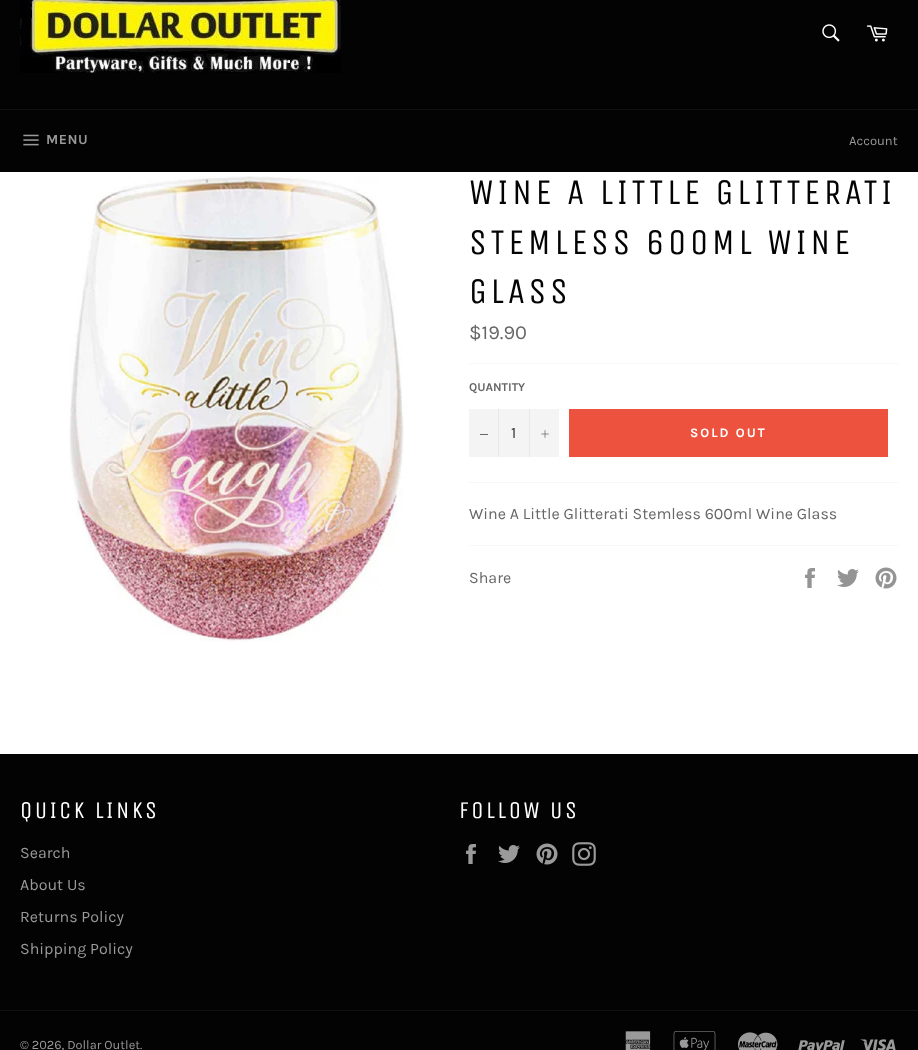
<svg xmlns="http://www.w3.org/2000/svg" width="918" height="1050">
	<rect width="100%" height="100%" fill="#030303" />
	<image x="20" y="0" width="321" height="73" href="assets/img1.png" />
	<image x="822" y="24" width="18" height="18" href="assets/img2.png" />
	<image x="866" y="25" width="22" height="17" href="assets/img3.png" />
	<rect x="0" y="109" width="918" height="1" fill="#101010" />
	<image x="23" y="134" width="16" height="12" href="assets/img4.png" />
	<text x="46" y="144" font-family="Karla" font-size="14" font-weight="700" letter-spacing="0.5" fill="#9A9A9A">MENU</text>
	<text x="849" y="145" font-family="Karla" font-size="13" fill="#9A9A9A">Account</text>
	<rect x="0" y="172" width="918" height="582" fill="#FFFFFF" />
	<image x="69" y="176" width="335" height="466" href="assets/img5.png" />
	<g font-family="Unica One" font-size="36" letter-spacing="3.6" fill="#030303">
		<text x="469" y="204">WINE A LITTLE GLITTERATI</text>
		<text x="469" y="254">STEMLESS 600ML WINE</text>
		<text x="469" y="303">GLASS</text>
	</g>
	<text x="469" y="339" font-family="Karla" font-size="20" fill="#666666">$19.90</text>
	<rect x="469" y="363" width="429" height="1" fill="#F7F7F7" />
	<text x="469" y="391" font-family="Karla" font-size="12" font-weight="700" fill="#666666">QUANTITY</text>
	<rect x="469" y="409" width="90" height="48" fill="#F4F4F4" />
	<rect x="498" y="409" width="1" height="48" fill="#E7E7E7" />
	<rect x="480" y="434" width="8" height="1" fill="#666666" />
	<text x="511" y="438" font-family="Karla" font-size="16" fill="#333333">1</text>
	<rect x="529" y="409" width="1" height="48" fill="#E7E7E7" />
	<image x="541" y="430" width="8" height="8" href="assets/img6.png" />
	<rect x="569" y="409" width="319" height="48" fill="#EC523E" />
	<text x="690" y="437" font-family="Karla" font-size="13" font-weight="700" letter-spacing="2" fill="#FFFFFF">SOLD OUT</text>
	<rect x="469" y="482" width="429" height="1" fill="#F7F7F7" />
	<text x="469" y="519" font-family="Karla" font-size="16" fill="#666666">Wine A Little Glitterati Stemless 600ml Wine Glass</text>
	<rect x="469" y="545" width="429" height="1" fill="#F7F7F7" />
	<text x="469" y="583" font-family="Karla" font-size="16" fill="#666666">Share</text>
	<image x="805" y="568" width="10" height="20" href="assets/img7.png" />
	<image x="837" y="569" width="22" height="18" href="assets/img8.png" />
	<image x="875" y="567" width="22" height="22" href="assets/img9.png" />
	<text x="20" y="818" font-family="Unica One" font-size="24" letter-spacing="2.4" fill="#FFFFFF">QUICK LINKS</text>
	<g font-family="Karla" font-size="16" fill="#9A9A9A">
		<text x="20" y="858">Search</text>
		<text x="20" y="890">About Us</text>
		<text x="20" y="922">Returns Policy</text>
		<text x="20" y="954">Shipping Policy</text>
	</g>
	<text x="459" y="818" font-family="Unica One" font-size="24" letter-spacing="2.4" fill="#FFFFFF">FOLLOW US</text>
	<image x="466" y="844" width="10" height="20" href="assets/img10.png" />
	<image x="498" y="845" width="22" height="18" href="assets/img11.png" />
	<image x="536" y="843" width="22" height="22" href="assets/img12.png" />
	<image x="572" y="842" width="24" height="24" href="assets/img13.png" />
	<rect x="0" y="1010" width="918" height="1" fill="#101010" />
	<g font-family="Karla" font-size="12.75" fill="#9A9A9A">
		<text x="20" y="1049">© 2026, Dollar Outlet</text>
		<text x="140" y="1049">.</text>
	</g>
	<image x="625" y="1031" width="26" height="19" href="assets/img14.png" />
	<image x="673" y="1031" width="43" height="19" href="assets/img15.png" />
	<image x="738" y="1032" width="40" height="18" href="assets/img16.png" />
	<image x="798" y="1040" width="47" height="10" href="assets/img17.png" />
	<image x="860" y="1039" width="36" height="11" href="assets/img18.png" />
</svg>
